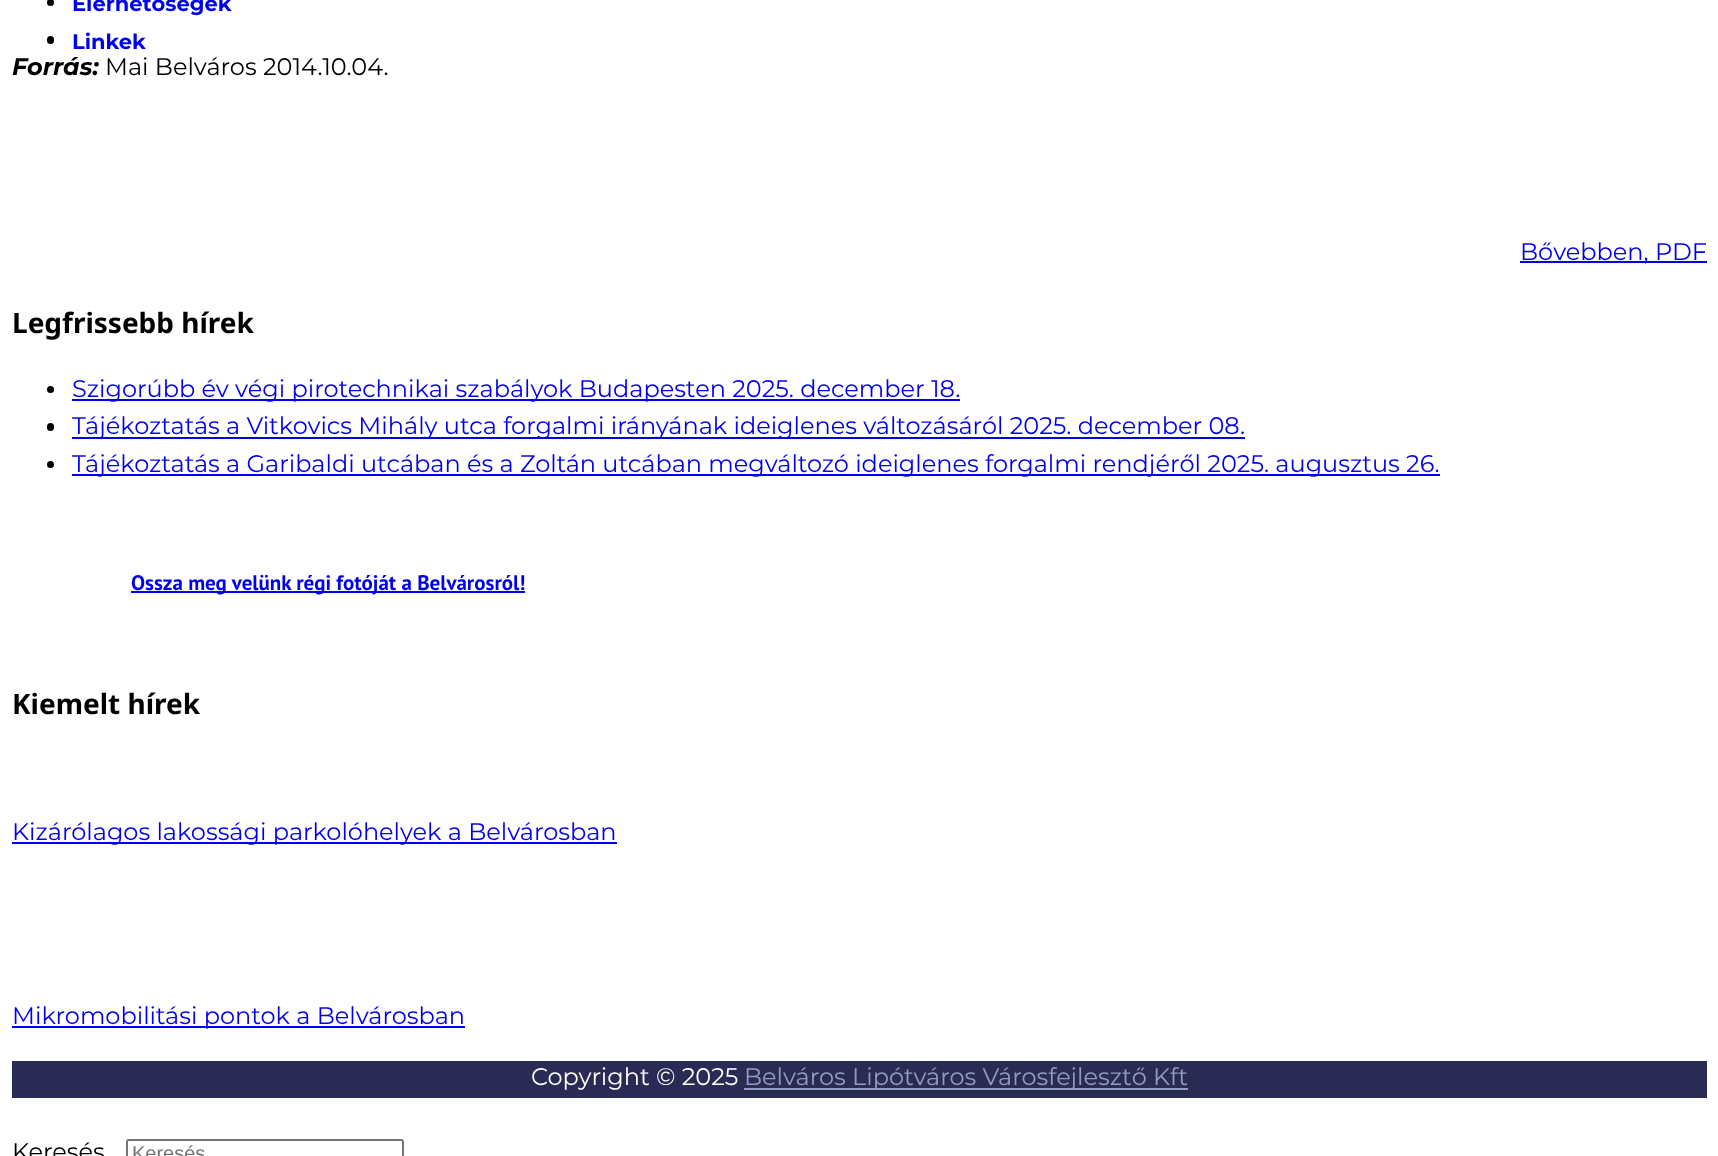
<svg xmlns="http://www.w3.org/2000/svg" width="1718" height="1156">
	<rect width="100%" height="100%" fill="#FFFFFF" />
	<circle cx="50.5" cy="2.5" r="3.5" fill="#000000" />
	<text x="72" y="11" font-family="Montserrat" font-size="21" font-weight="700" fill="#0000EE">Elérhetőségek</text>
	<rect x="47" y="36" width="7" height="8" rx="3.5" fill="#000000" />
	<text x="72" y="49" font-family="Montserrat" font-size="21" font-weight="700" fill="#0000EE">Linkek</text>
	<text x="12" y="75" font-family="Montserrat" font-size="24" font-weight="700" font-style="italic" fill="#000000">Forrás:</text>
	<text x="105" y="75" font-family="Montserrat" font-size="24" fill="#000000">Mai Belváros 2014.10.04.</text>
	<rect x="1520" y="261" width="187" height="2" fill="#0000EE" />
	<text x="1520" y="260" font-family="Montserrat" font-size="24" fill="#0000EE">Bővebben, PDF</text>
	<text x="12" y="333" font-family="Noto Sans" font-size="28" font-weight="700" fill="#000000">Legfrissebb hírek</text>
	<circle cx="50.5" cy="389.5" r="3.5" fill="#000000" />
	<rect x="72" y="399" width="888" height="2" fill="#0000EE" />
	<text x="72" y="397" font-family="Montserrat" font-size="24" fill="#0000EE">Szigorúbb év végi pirotechnikai szabályok Budapesten 2025. december 18.</text>
	<rect x="47" y="423" width="7" height="8" rx="3.5" fill="#000000" />
	<rect x="72" y="437" width="1173" height="2" fill="#0000EE" />
	<text x="72" y="434" font-family="Montserrat" font-size="24" fill="#0000EE">Tájékoztatás a Vitkovics Mihály utca forgalmi irányának ideiglenes változásáról 2025. december 08.</text>
	<circle cx="50.5" cy="464.5" r="3.5" fill="#000000" />
	<rect x="72" y="474" width="1368" height="2" fill="#0000EE" />
	<text x="72" y="472" font-family="Montserrat" font-size="24" fill="#0000EE">Tájékoztatás a Garibaldi utcában és a Zoltán utcában megváltozó ideiglenes forgalmi rendjéről 2025. augusztus 26.</text>
	<rect x="131" y="591" width="394" height="2" fill="#0000EE" />
	<text x="131" y="590" font-family="PT Sans" font-size="21" font-weight="700" fill="#0000EE">Ossza meg velünk régi fotóját a Belvárosról!</text>
	<text x="12" y="714" font-family="Noto Sans" font-size="28" font-weight="700" fill="#000000">Kiemelt hírek</text>
	<rect x="12" y="842" width="605" height="2" fill="#0000EE" />
	<text x="12" y="840" font-family="Montserrat" font-size="24" fill="#0000EE">Kizárólagos lakossági parkolóhelyek a Belvárosban</text>
	<rect x="12" y="1026" width="453" height="2" fill="#0000EE" />
	<text x="12" y="1024" font-family="Montserrat" font-size="24" fill="#0000EE">Mikromobilitási pontok a Belvárosban</text>
	<rect x="12" y="1061" width="1695" height="37" fill="#292B54" />
	<text x="531" y="1085" font-family="Montserrat" font-size="24" fill="#FFFFFF">Copyright © 2025</text>
	<rect x="744" y="1088" width="444" height="2" fill="#929CBF" />
	<text x="744" y="1085" font-family="Montserrat" font-size="24" fill="#929CBF">Belváros Lipótváros Városfejlesztő Kft</text>
	<text x="12" y="1160" font-family="Montserrat" font-size="24" fill="#000000">Keresés</text>
	<rect x="127" y="1140" width="276" height="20" rx="2" fill="none" stroke="#767676" stroke-width="2" />
	<text x="132" y="1160" font-family="Liberation Sans" font-size="20" fill="#757575">Keresés</text>
</svg>
